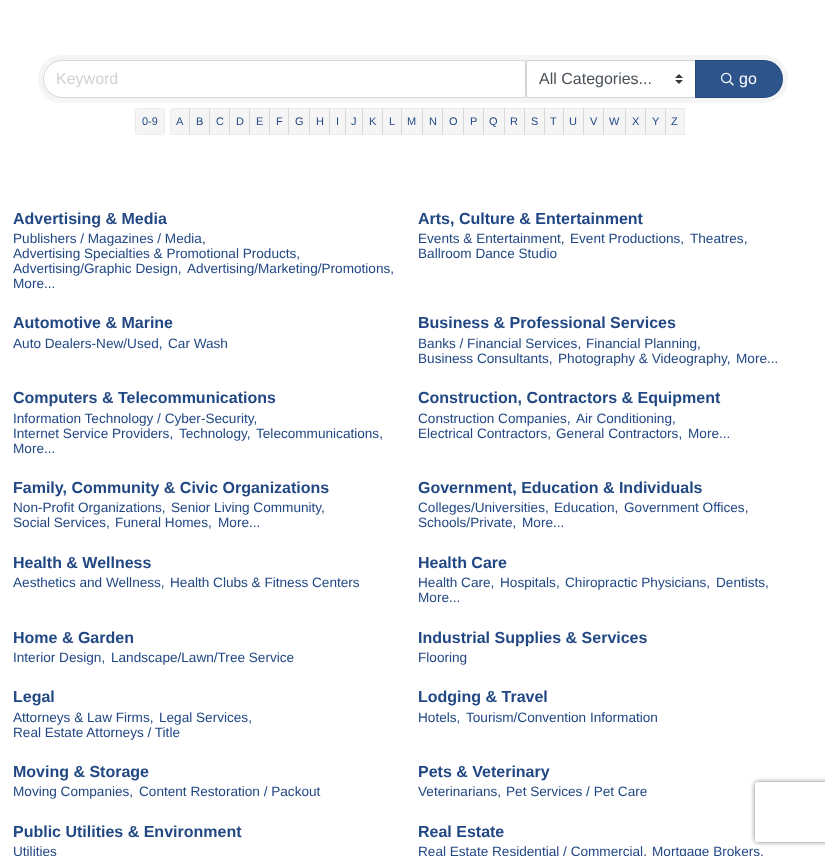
<svg xmlns="http://www.w3.org/2000/svg" width="825" height="856">
	<defs>
		<clipPath id="clip1"><path d="M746 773H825V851H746ZM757 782H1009C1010 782 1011 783 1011 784V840C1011 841 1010 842 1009 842H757C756 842 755 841 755 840V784C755 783 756 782 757 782Z" clip-rule="evenodd" /></clipPath>
	</defs>
	<rect width="100%" height="100%" fill="#FFFFFF" />
	<rect x="38" y="55" width="750" height="48" rx="24" fill="#F5F5F5" />
	<path d="M62 61H523C524 61 525 62 525 63V95C525 96 524 97 523 97H62C52 97 44 89 44 79C44 69 52 61 62 61Z" fill="#FFFFFF" />
	<path d="M62 60.5H523C524.5 60.5 525.5 61.5 525.5 63V95C525.5 96.5 524.5 97.5 523 97.5H62C52 97.5 43.5 89 43.5 79C43.5 69 52 60.5 62 60.5Z" fill="none" stroke="#000000" stroke-opacity="0.12" />
	<text x="56" y="84" font-family="Liberation Sans" font-size="16" fill="#D2D2D2">Keyword</text>
	<rect x="527" y="61" width="168" height="36" fill="#FFFFFF" />
	<image x="675" y="74" width="8" height="10" href="assets/img1.png" />
	<rect x="526.5" y="60.5" width="169" height="37" fill="none" stroke="#CED4DA" />
	<text x="539" y="84" font-family="Liberation Sans" font-size="16" fill="#495057">All Categories...</text>
	<path d="M695 60H764C774.5 60 783 68.5 783 79C783 89.5 774.5 98 764 98H695Z" fill="#2D548B" />
	<path d="M695.5 60.5H764C774 60.5 782.5 69 782.5 79C782.5 89 774 97.5 764 97.5H695.5Z" fill="none" stroke="#000000" stroke-opacity="0.12" />
	<image x="721" y="72" width="13" height="14" href="assets/img2.png" />
	<text x="739" y="84" font-family="Liberation Sans" font-size="16" fill="#FFFFFF">go</text>
	<rect x="135" y="108" width="30" height="27" rx="5" fill="#F5F5F5" />
	<rect x="135.5" y="108.5" width="29" height="26" fill="none" stroke="#000000" stroke-opacity="0.04" />
	<text x="142" y="125" font-family="Liberation Sans" font-size="11" fill="#224884">0-9</text>
	<path d="M175 108H190V135H175C172 135 170 133 170 130V113C170 110 172 108 175 108Z" fill="#F5F5F5" />
	<rect x="170.5" y="108.5" width="19" height="26" fill="none" stroke="#000000" stroke-opacity="0.04" />
	<text x="176" y="125" font-family="Liberation Sans" font-size="11" fill="#224884">A</text>
	<rect x="189" y="108" width="21" height="27" fill="#000000" fill-opacity="0.04" />
	<rect x="189.5" y="108.5" width="20" height="26" fill="none" stroke="#000000" stroke-opacity="0.04" />
	<text x="196" y="125" font-family="Liberation Sans" font-size="11" fill="#224884">B</text>
	<rect x="209" y="108" width="21" height="27" fill="#000000" fill-opacity="0.04" />
	<rect x="209.5" y="108.5" width="20" height="26" fill="none" stroke="#000000" stroke-opacity="0.04" />
	<text x="216" y="125" font-family="Liberation Sans" font-size="11" fill="#224884">C</text>
	<rect x="229" y="108" width="21" height="27" fill="#000000" fill-opacity="0.04" />
	<rect x="229.5" y="108.5" width="20" height="26" fill="none" stroke="#000000" stroke-opacity="0.04" />
	<text x="236" y="125" font-family="Liberation Sans" font-size="11" fill="#224884">D</text>
	<rect x="249" y="108" width="21" height="27" fill="#000000" fill-opacity="0.04" />
	<rect x="249.5" y="108.5" width="20" height="26" fill="none" stroke="#000000" stroke-opacity="0.04" />
	<text x="256" y="125" font-family="Liberation Sans" font-size="11" fill="#224884">E</text>
	<rect x="269" y="108" width="20" height="27" fill="#000000" fill-opacity="0.04" />
	<rect x="269.5" y="108.5" width="19" height="26" fill="none" stroke="#000000" stroke-opacity="0.04" />
	<text x="276" y="125" font-family="Liberation Sans" font-size="11" fill="#224884">F</text>
	<rect x="288" y="108" width="22" height="27" fill="#000000" fill-opacity="0.04" />
	<rect x="288.5" y="108.5" width="21" height="26" fill="none" stroke="#000000" stroke-opacity="0.04" />
	<text x="295" y="125" font-family="Liberation Sans" font-size="11" fill="#224884">G</text>
	<rect x="309" y="108" width="21" height="27" fill="#000000" fill-opacity="0.04" />
	<rect x="309.5" y="108.5" width="20" height="26" fill="none" stroke="#000000" stroke-opacity="0.04" />
	<text x="316" y="125" font-family="Liberation Sans" font-size="11" fill="#224884">H</text>
	<rect x="329" y="108" width="17" height="27" fill="#000000" fill-opacity="0.04" />
	<rect x="329.5" y="108.5" width="16" height="26" fill="none" stroke="#000000" stroke-opacity="0.04" />
	<text x="336" y="125" font-family="Liberation Sans" font-size="11" fill="#224884">I</text>
	<rect x="345" y="108" width="18" height="27" fill="#000000" fill-opacity="0.04" />
	<rect x="345.5" y="108.5" width="17" height="26" fill="none" stroke="#000000" stroke-opacity="0.04" />
	<text x="351" y="125" font-family="Liberation Sans" font-size="11" fill="#224884">J</text>
	<rect x="362" y="108" width="21" height="27" fill="#000000" fill-opacity="0.04" />
	<rect x="362.5" y="108.5" width="20" height="26" fill="none" stroke="#000000" stroke-opacity="0.04" />
	<text x="369" y="125" font-family="Liberation Sans" font-size="11" fill="#224884">K</text>
	<rect x="382" y="108" width="20" height="27" fill="#000000" fill-opacity="0.04" />
	<rect x="382.5" y="108.5" width="19" height="26" fill="none" stroke="#000000" stroke-opacity="0.04" />
	<text x="389" y="125" font-family="Liberation Sans" font-size="11" fill="#224884">L</text>
	<rect x="401" y="108" width="22" height="27" fill="#000000" fill-opacity="0.04" />
	<rect x="401.5" y="108.5" width="21" height="26" fill="none" stroke="#000000" stroke-opacity="0.04" />
	<text x="407" y="125" font-family="Liberation Sans" font-size="11" fill="#224884">M</text>
	<rect x="422" y="108" width="21" height="27" fill="#000000" fill-opacity="0.04" />
	<rect x="422.5" y="108.5" width="20" height="26" fill="none" stroke="#000000" stroke-opacity="0.04" />
	<text x="429" y="125" font-family="Liberation Sans" font-size="11" fill="#224884">N</text>
	<rect x="442" y="108" width="22" height="27" fill="#000000" fill-opacity="0.04" />
	<rect x="442.5" y="108.5" width="21" height="26" fill="none" stroke="#000000" stroke-opacity="0.04" />
	<text x="449" y="125" font-family="Liberation Sans" font-size="11" fill="#224884">O</text>
	<rect x="463" y="108" width="21" height="27" fill="#000000" fill-opacity="0.04" />
	<rect x="463.5" y="108.5" width="20" height="26" fill="none" stroke="#000000" stroke-opacity="0.04" />
	<text x="470" y="125" font-family="Liberation Sans" font-size="11" fill="#224884">P</text>
	<rect x="483" y="108" width="22" height="27" fill="#000000" fill-opacity="0.04" />
	<rect x="483.5" y="108.5" width="21" height="26" fill="none" stroke="#000000" stroke-opacity="0.04" />
	<text x="489" y="125" font-family="Liberation Sans" font-size="11" fill="#224884">Q</text>
	<rect x="504" y="108" width="21" height="27" fill="#000000" fill-opacity="0.04" />
	<rect x="504.5" y="108.5" width="20" height="26" fill="none" stroke="#000000" stroke-opacity="0.04" />
	<text x="510" y="125" font-family="Liberation Sans" font-size="11" fill="#224884">R</text>
	<rect x="524" y="108" width="21" height="27" fill="#000000" fill-opacity="0.04" />
	<rect x="524.5" y="108.5" width="20" height="26" fill="none" stroke="#000000" stroke-opacity="0.04" />
	<text x="531" y="125" font-family="Liberation Sans" font-size="11" fill="#224884">S</text>
	<rect x="544" y="108" width="20" height="27" fill="#000000" fill-opacity="0.04" />
	<rect x="544.5" y="108.5" width="19" height="26" fill="none" stroke="#000000" stroke-opacity="0.04" />
	<text x="550" y="125" font-family="Liberation Sans" font-size="11" fill="#224884">T</text>
	<rect x="563" y="108" width="21" height="27" fill="#000000" fill-opacity="0.04" />
	<rect x="563.5" y="108.5" width="20" height="26" fill="none" stroke="#000000" stroke-opacity="0.04" />
	<text x="569" y="125" font-family="Liberation Sans" font-size="11" fill="#224884">U</text>
	<rect x="583" y="108" width="21" height="27" fill="#000000" fill-opacity="0.04" />
	<rect x="583.5" y="108.5" width="20" height="26" fill="none" stroke="#000000" stroke-opacity="0.04" />
	<text x="590" y="125" font-family="Liberation Sans" font-size="11" fill="#224884">V</text>
	<rect x="603" y="108" width="23" height="27" fill="#000000" fill-opacity="0.04" />
	<rect x="603.5" y="108.5" width="22" height="26" fill="none" stroke="#000000" stroke-opacity="0.04" />
	<text x="609" y="125" font-family="Liberation Sans" font-size="11" fill="#224884">W</text>
	<rect x="625" y="108" width="21" height="27" fill="#000000" fill-opacity="0.04" />
	<rect x="625.5" y="108.5" width="20" height="26" fill="none" stroke="#000000" stroke-opacity="0.04" />
	<text x="632" y="125" font-family="Liberation Sans" font-size="11" fill="#224884">X</text>
	<rect x="645" y="108" width="21" height="27" fill="#000000" fill-opacity="0.04" />
	<rect x="645.5" y="108.5" width="20" height="26" fill="none" stroke="#000000" stroke-opacity="0.04" />
	<text x="652" y="125" font-family="Liberation Sans" font-size="11" fill="#224884">Y</text>
	<rect x="665" y="108" width="20" height="27" fill="#000000" fill-opacity="0.04" />
	<rect x="665.5" y="108.5" width="19" height="26" fill="none" stroke="#000000" stroke-opacity="0.04" />
	<text x="671" y="125" font-family="Liberation Sans" font-size="11" fill="#224884">Z</text>
	<text x="13" y="224" font-family="Liberation Sans" font-size="16" font-weight="700" fill="#224884">Advertising &amp; Media</text>
	<g font-family="Liberation Sans" font-size="13.6" fill="#224884">
		<text x="13" y="243">Publishers / Magazines / Media,</text>
		<text x="13" y="258">Advertising Specialties &amp; Promotional Products,</text>
		<text x="13" y="273">Advertising/Graphic Design,</text>
		<text x="187" y="273">Advertising/Marketing/Promotions,</text>
		<text x="13" y="288">More...</text>
	</g>
	<text x="418" y="224" font-family="Liberation Sans" font-size="16" font-weight="700" fill="#224884">Arts, Culture &amp; Entertainment</text>
	<g font-family="Liberation Sans" font-size="13.6" fill="#224884">
		<text x="418" y="243">Events &amp; Entertainment,</text>
		<text x="570" y="243">Event Productions,</text>
		<text x="690" y="243">Theatres,</text>
		<text x="418" y="258">Ballroom Dance Studio</text>
	</g>
	<text x="13" y="328" font-family="Liberation Sans" font-size="16" font-weight="700" fill="#224884">Automotive &amp; Marine</text>
	<g font-family="Liberation Sans" font-size="13.6" fill="#224884">
		<text x="13" y="348">Auto Dealers-New/Used,</text>
		<text x="168" y="348">Car Wash</text>
	</g>
	<text x="418" y="328" font-family="Liberation Sans" font-size="16" font-weight="700" fill="#224884">Business &amp; Professional Services</text>
	<g font-family="Liberation Sans" font-size="13.6" fill="#224884">
		<text x="418" y="348">Banks / Financial Services,</text>
		<text x="586" y="348">Financial Planning,</text>
		<text x="418" y="363">Business Consultants,</text>
		<text x="558" y="363">Photography &amp; Videography,</text>
		<text x="736" y="363">More...</text>
	</g>
	<text x="13" y="403" font-family="Liberation Sans" font-size="16" font-weight="700" fill="#224884">Computers &amp; Telecommunications</text>
	<g font-family="Liberation Sans" font-size="13.6" fill="#224884">
		<text x="13" y="423">Information Technology / Cyber-Security,</text>
		<text x="13" y="438">Internet Service Providers,</text>
		<text x="179" y="438">Technology,</text>
		<text x="256" y="438">Telecommunications,</text>
		<text x="13" y="453">More...</text>
	</g>
	<text x="418" y="403" font-family="Liberation Sans" font-size="16" font-weight="700" fill="#224884">Construction, Contractors &amp; Equipment</text>
	<g font-family="Liberation Sans" font-size="13.6" fill="#224884">
		<text x="418" y="423">Construction Companies,</text>
		<text x="576" y="423">Air Conditioning,</text>
		<text x="418" y="438">Electrical Contractors,</text>
		<text x="556" y="438">General Contractors,</text>
		<text x="688" y="438">More...</text>
	</g>
	<text x="13" y="493" font-family="Liberation Sans" font-size="16" font-weight="700" fill="#224884">Family, Community &amp; Civic Organizations</text>
	<g font-family="Liberation Sans" font-size="13.6" fill="#224884">
		<text x="13" y="512">Non-Profit Organizations,</text>
		<text x="171" y="512">Senior Living Community,</text>
		<text x="13" y="527">Social Services,</text>
		<text x="115" y="527">Funeral Homes,</text>
		<text x="218" y="527">More...</text>
	</g>
	<text x="418" y="493" font-family="Liberation Sans" font-size="16" font-weight="700" fill="#224884">Government, Education &amp; Individuals</text>
	<g font-family="Liberation Sans" font-size="13.6" fill="#224884">
		<text x="418" y="512">Colleges/Universities,</text>
		<text x="554" y="512">Education,</text>
		<text x="624" y="512">Government Offices,</text>
		<text x="418" y="527">Schools/Private,</text>
		<text x="522" y="527">More...</text>
	</g>
	<text x="13" y="568" font-family="Liberation Sans" font-size="16" font-weight="700" fill="#224884">Health &amp; Wellness</text>
	<g font-family="Liberation Sans" font-size="13.6" fill="#224884">
		<text x="13" y="587">Aesthetics and Wellness,</text>
		<text x="170" y="587">Health Clubs &amp; Fitness Centers</text>
	</g>
	<text x="418" y="568" font-family="Liberation Sans" font-size="16" font-weight="700" fill="#224884">Health Care</text>
	<g font-family="Liberation Sans" font-size="13.6" fill="#224884">
		<text x="418" y="587">Health Care,</text>
		<text x="500" y="587">Hospitals,</text>
		<text x="565" y="587">Chiropractic Physicians,</text>
		<text x="716" y="587">Dentists,</text>
		<text x="418" y="602">More...</text>
	</g>
	<text x="13" y="643" font-family="Liberation Sans" font-size="16" font-weight="700" fill="#224884">Home &amp; Garden</text>
	<g font-family="Liberation Sans" font-size="13.6" fill="#224884">
		<text x="13" y="662">Interior Design,</text>
		<text x="111" y="662">Landscape/Lawn/Tree Service</text>
	</g>
	<text x="418" y="643" font-family="Liberation Sans" font-size="16" font-weight="700" fill="#224884">Industrial Supplies &amp; Services</text>
	<text x="418" y="662" font-family="Liberation Sans" font-size="13.6" fill="#224884">Flooring</text>
	<text x="13" y="702" font-family="Liberation Sans" font-size="16" font-weight="700" fill="#224884">Legal</text>
	<g font-family="Liberation Sans" font-size="13.6" fill="#224884">
		<text x="13" y="722">Attorneys &amp; Law Firms,</text>
		<text x="159" y="722">Legal Services,</text>
		<text x="13" y="737">Real Estate Attorneys / Title</text>
	</g>
	<text x="418" y="702" font-family="Liberation Sans" font-size="16" font-weight="700" fill="#224884">Lodging &amp; Travel</text>
	<g font-family="Liberation Sans" font-size="13.6" fill="#224884">
		<text x="418" y="722">Hotels,</text>
		<text x="466" y="722">Tourism/Convention Information</text>
	</g>
	<text x="13" y="777" font-family="Liberation Sans" font-size="16" font-weight="700" fill="#224884">Moving &amp; Storage</text>
	<g font-family="Liberation Sans" font-size="13.6" fill="#224884">
		<text x="13" y="796">Moving Companies,</text>
		<text x="139" y="796">Content Restoration / Packout</text>
	</g>
	<text x="418" y="777" font-family="Liberation Sans" font-size="16" font-weight="700" fill="#224884">Pets &amp; Veterinary</text>
	<g font-family="Liberation Sans" font-size="13.6" fill="#224884">
		<text x="418" y="796">Veterinarians,</text>
		<text x="506" y="796">Pet Services / Pet Care</text>
	</g>
	<text x="13" y="837" font-family="Liberation Sans" font-size="16" font-weight="700" fill="#224884">Public Utilities &amp; Environment</text>
	<text x="13" y="856" font-family="Liberation Sans" font-size="13.6" fill="#224884">Utilities</text>
	<text x="418" y="837" font-family="Liberation Sans" font-size="16" font-weight="700" fill="#224884">Real Estate</text>
	<g font-family="Liberation Sans" font-size="13.6" fill="#224884">
		<text x="418" y="856">Real Estate Residential / Commercial,</text>
		<text x="652" y="856">Mortgage Brokers,</text>
	</g>
	<g clip-path="url(#clip1)">
		<rect x="755" y="782" width="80" height="60" rx="2" fill="#808080" filter="blur(2.5px)" />
	</g>
</svg>
